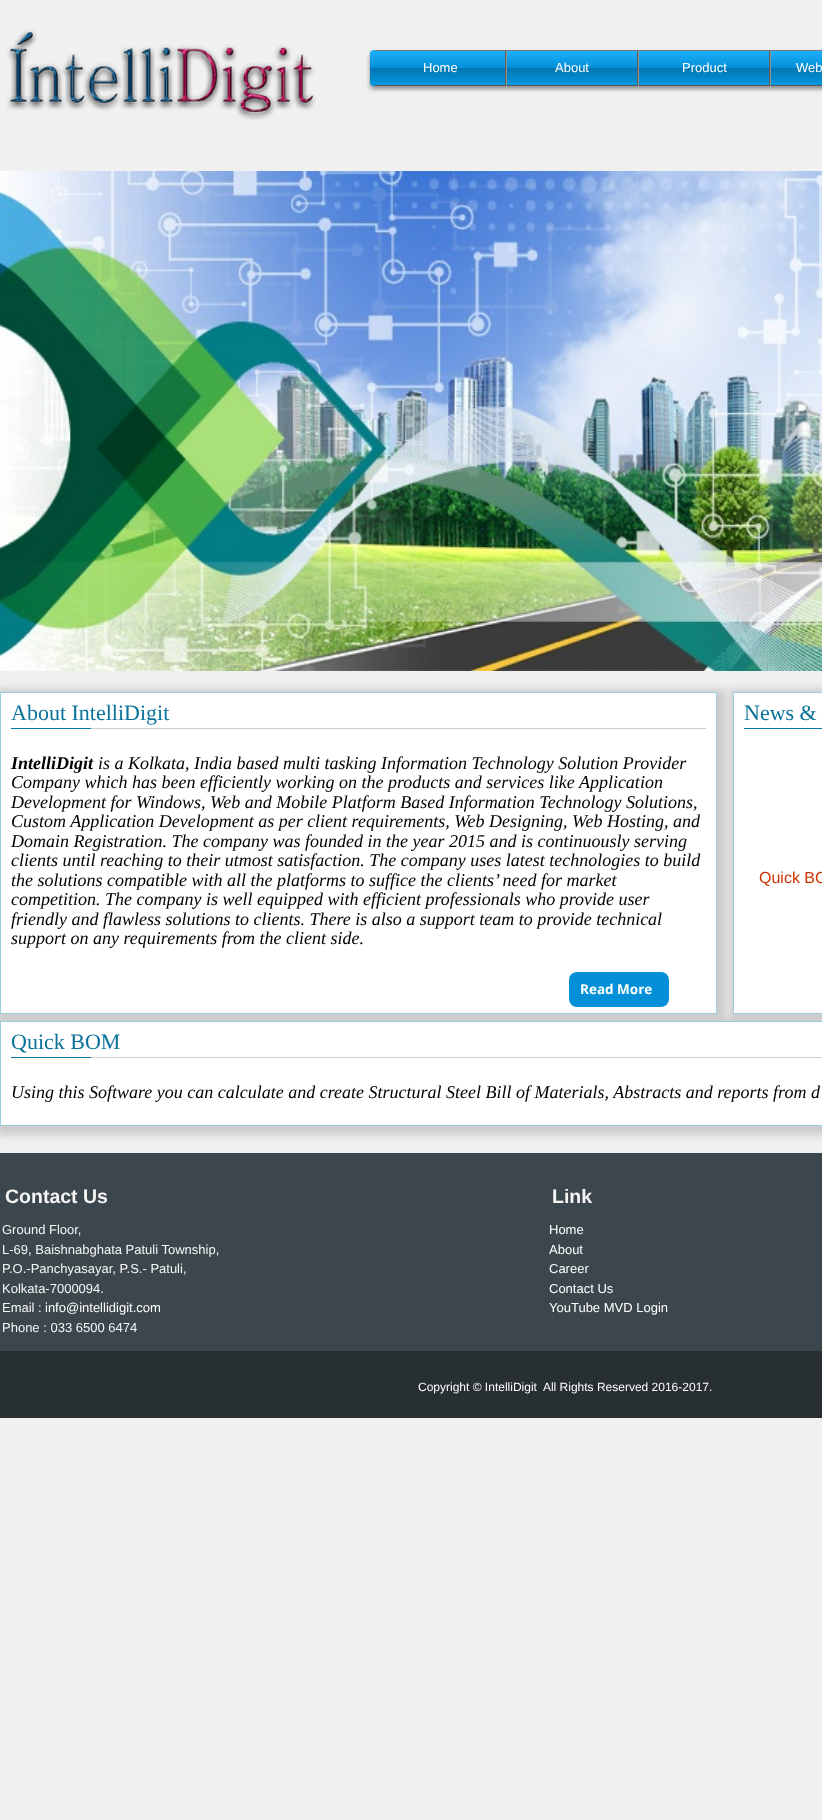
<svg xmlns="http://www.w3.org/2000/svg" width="822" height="1820">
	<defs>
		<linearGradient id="g1" gradientUnits="userSpaceOnUse" x1="370" y1="86" x2="370" y2="50"><stop offset="0" stop-color="#0398E2" /><stop offset="0.5" stop-color="#0376B0" /><stop offset="0.51" stop-color="#0390D9" /><stop offset="1" stop-color="#1DB1FC" /></linearGradient>
		<linearGradient id="g2" gradientUnits="userSpaceOnUse" x1="375" y1="85" x2="375" y2="51"><stop offset="0" stop-color="#0398E2" /><stop offset="0.5" stop-color="#0376B0" /><stop offset="0.51" stop-color="#0390D9" /><stop offset="1" stop-color="#1DB1FC" /></linearGradient>
		<linearGradient id="g3" gradientUnits="userSpaceOnUse" x1="507" y1="85" x2="507" y2="51"><stop offset="0" stop-color="#0398E2" /><stop offset="0.5" stop-color="#0376B0" /><stop offset="0.51" stop-color="#0390D9" /><stop offset="1" stop-color="#1DB1FC" /></linearGradient>
		<linearGradient id="g4" gradientUnits="userSpaceOnUse" x1="639" y1="85" x2="639" y2="51"><stop offset="0" stop-color="#0398E2" /><stop offset="0.5" stop-color="#0376B0" /><stop offset="0.51" stop-color="#0390D9" /><stop offset="1" stop-color="#1DB1FC" /></linearGradient>
		<linearGradient id="g5" gradientUnits="userSpaceOnUse" x1="771" y1="85" x2="771" y2="51"><stop offset="0" stop-color="#0398E2" /><stop offset="0.5" stop-color="#0376B0" /><stop offset="0.51" stop-color="#0390D9" /><stop offset="1" stop-color="#1DB1FC" /></linearGradient>
	</defs>
	<rect width="100%" height="100%" fill="#F0F0F0" />
	<image x="6" y="29" width="310" height="91" href="assets/img1.png" />
	<rect x="370" y="53" width="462" height="36" rx="4" fill="#8B8B8B" filter="blur(2px)" />
	<rect x="370" y="50" width="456" height="36" rx="4" fill="url(#g1)" />
	<rect x="375" y="50" width="447" height="1" fill="#797979" />
	<rect x="505" y="50" width="1" height="36" fill="#5D5D5D" />
	<rect x="375" y="85" width="131" height="1" fill="#575757" />
	<rect x="375" y="82" width="130" height="3" fill="url(#g2)" />
	<text x="423" y="72" font-family="Liberation Sans" font-size="13" fill="#FFFFFF">Home</text>
	<rect x="637" y="50" width="1" height="36" fill="#5D5D5D" />
	<rect x="506" y="85" width="132" height="1" fill="#575757" />
	<rect x="506" y="50" width="1" height="36" fill="#929292" />
	<rect x="507" y="82" width="130" height="3" fill="url(#g3)" />
	<text x="555" y="72" font-family="Liberation Sans" font-size="13" fill="#FFFFFF">About</text>
	<rect x="769" y="50" width="1" height="36" fill="#5D5D5D" />
	<rect x="638" y="85" width="184" height="1" fill="#575757" />
	<rect x="638" y="50" width="1" height="36" fill="#929292" />
	<rect x="639" y="82" width="130" height="3" fill="url(#g4)" />
	<text x="682" y="72" font-family="Liberation Sans" font-size="13" fill="#FFFFFF">Product</text>
	<rect x="770" y="50" width="1" height="36" fill="#929292" />
	<rect x="771" y="82" width="51" height="3" fill="url(#g5)" />
	<text x="796" y="72" font-family="Liberation Sans" font-size="13" fill="#FFFFFF">Web</text>
	<image x="0" y="171" width="822" height="500" href="assets/img2.png" />
	<rect x="-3" y="689" width="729" height="334" fill="#CCCCCC" filter="blur(3.5px)" />
	<rect x="0.5" y="692.5" width="716" height="321" fill="#FFFFFF" stroke="#9BCDE0" />
	<rect x="91" y="728" width="615" height="1" fill="#CCCCCC" />
	<text x="11" y="720" font-family="Liberation Serif" font-size="22" fill="#087299">About IntelliDigit</text>
	<rect x="11" y="728" width="80" height="1" fill="#007BA8" />
	<text x="11" y="769" font-family="Liberation Serif" font-size="18" font-weight="700" font-style="italic" fill="#000000">IntelliDigit</text>
	<g font-family="Liberation Serif" font-size="18" font-style="italic" fill="#000000">
		<text x="98" y="769">is a Kolkata, India based multi tasking Information Technology Solution Provider</text>
		<text x="11" y="788">Company which has been efficiently working on the products and services like Application</text>
		<text x="11" y="808">Development for Windows, Web and Mobile Platform Based Information Technology Solutions,</text>
		<text x="11" y="827">Custom Application Development as per client requirements, Web Designing, Web Hosting, and</text>
		<text x="11" y="847">Domain Registration. The company was founded in the year 2015 and is continuously serving</text>
		<text x="11" y="866">clients until reaching to their utmost satisfaction. The company uses latest technologies to build</text>
		<text x="11" y="886">the solutions compatible with all the platforms to suffice the clients’ need for market</text>
		<text x="11" y="905">competition. The company is well equipped with efficient professionals who provide user</text>
		<text x="11" y="925">friendly and flawless solutions to clients. There is also a support team to provide technical</text>
		<text x="11" y="944">support on any requirements from the client side.</text>
	</g>
	<rect x="569" y="972" width="100" height="35" rx="8" fill="#0390D9" />
	<text x="580" y="994" font-family="Open Sans" font-size="13.5" font-weight="700" fill="#FFFFFF">Read More</text>
	<rect x="730" y="689" width="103" height="334" fill="#CCCCCC" filter="blur(3.5px)" />
	<rect x="733.5" y="692.5" width="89" height="321" fill="#FFFFFF" stroke="#9BCDE0" />
	<text x="744" y="720" font-family="Liberation Serif" font-size="22" fill="#087299">News &amp;</text>
	<rect x="744" y="728" width="78" height="1" fill="#007BA8" />
	<text x="759" y="883" font-family="Liberation Sans" font-size="16" fill="#CC3300">Quick BO</text>
	<rect x="-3" y="1018" width="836" height="117" fill="#CCCCCC" filter="blur(3.5px)" />
	<rect x="0.5" y="1021.5" width="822" height="104" fill="#FFFFFF" stroke="#9BCDE0" />
	<rect x="91" y="1057" width="731" height="1" fill="#CCCCCC" />
	<text x="11" y="1049" font-family="Liberation Serif" font-size="22" fill="#087299">Quick BOM</text>
	<rect x="11" y="1057" width="80" height="1" fill="#007BA8" />
	<text x="11" y="1098" font-family="Liberation Serif" font-size="18" font-style="italic" fill="#000000">Using this Software you can calculate and create Structural Steel Bill of Materials, Abstracts and reports from d</text>
	<image x="0" y="1151" width="822" height="200" href="assets/img3.png" />
	<text x="5" y="1203" font-family="Liberation Sans" font-size="19.5" font-weight="700" fill="#F5F5F5">Contact Us</text>
	<g font-family="Liberation Sans" font-size="13" fill="#F5F5F5">
		<text x="2" y="1234">Ground Floor,</text>
		<text x="2" y="1254">L-69, Baishnabghata Patuli Township,</text>
		<text x="2" y="1273">P.O.-Panchyasayar, P.S.- Patuli,</text>
		<text x="2" y="1293">Kolkata-7000094.</text>
		<text x="2" y="1312">Email :</text>
	</g>
	<text x="45" y="1312" font-family="Liberation Sans" font-size="13" fill="#FFFFFF">info@intellidigit.com</text>
	<text x="2" y="1332" font-family="Liberation Sans" font-size="13" fill="#F5F5F5">Phone : 033 6500 6474</text>
	<text x="552" y="1203" font-family="Liberation Sans" font-size="19.5" font-weight="700" fill="#F5F5F5">Link</text>
	<g font-family="Liberation Sans" font-size="13" fill="#FFFFFF">
		<text x="549" y="1234">Home</text>
		<text x="549" y="1254">About</text>
		<text x="549" y="1273">Career</text>
		<text x="549" y="1293">Contact Us</text>
		<text x="549" y="1312">YouTube MVD Login</text>
	</g>
	<rect x="0" y="1351" width="822" height="67" fill="#282F33" />
	<text x="418" y="1391" font-family="Liberation Sans" font-size="12" fill="#FFFFFF" xml:space="preserve">Copyright © IntelliDigit  All Rights Reserved 2016-2017.</text>
</svg>
